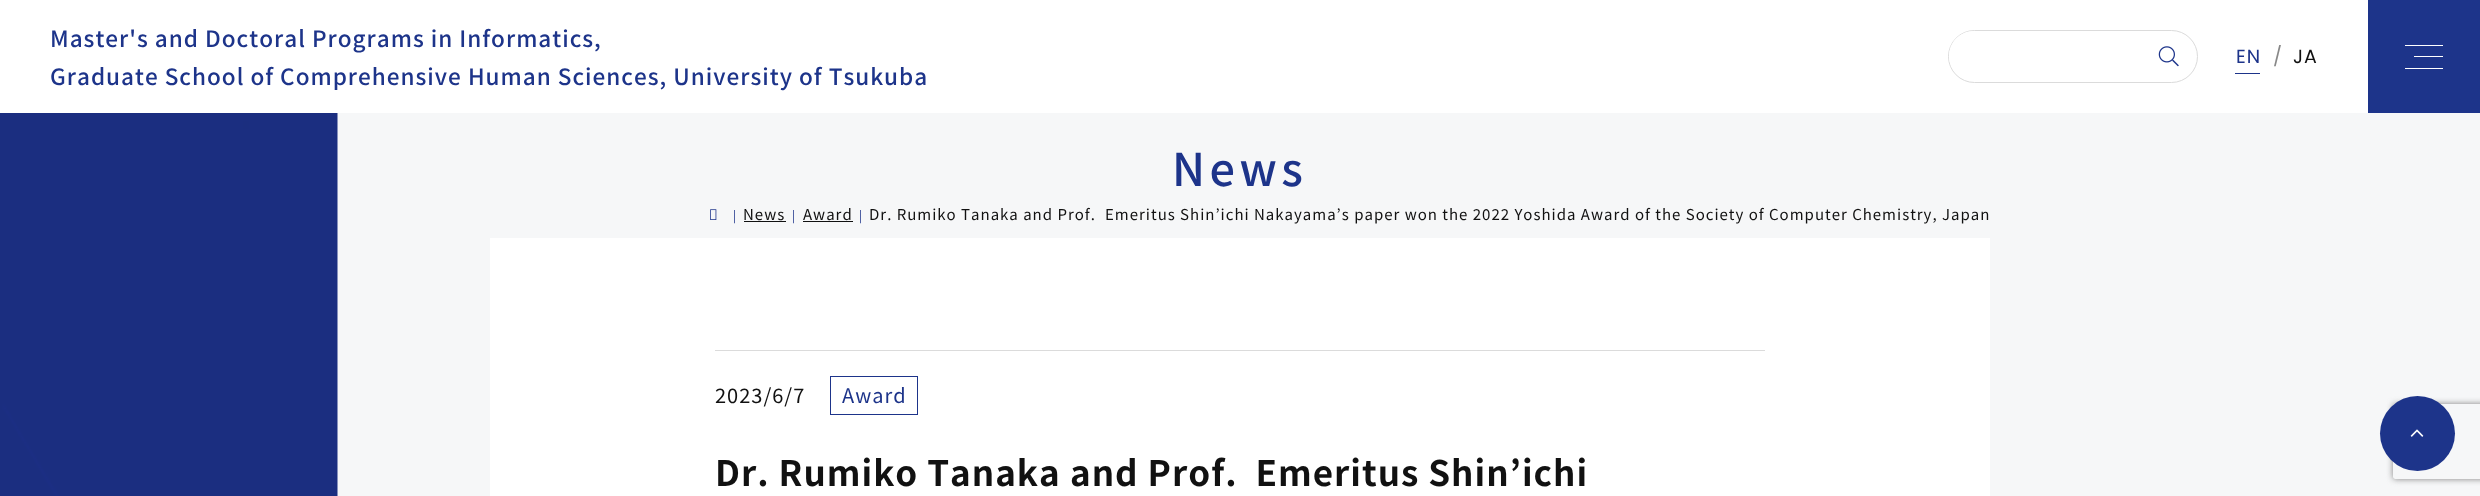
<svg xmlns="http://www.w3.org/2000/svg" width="2480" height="496">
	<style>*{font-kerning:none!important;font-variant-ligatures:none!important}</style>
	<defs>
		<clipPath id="clip1"><path d="M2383 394H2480V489H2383ZM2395.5 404H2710.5C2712 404 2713 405 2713 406.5V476.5C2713 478 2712 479 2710.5 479H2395.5C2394 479 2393 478 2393 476.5V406.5C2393 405 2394 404 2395.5 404Z" clip-rule="evenodd" /></clipPath>
	</defs>
	<rect width="100%" height="100%" fill="#F6F7F8" />
	<image x="0" y="113" width="338" height="383" href="assets/img1.png" />
	<rect x="0" y="0" width="2368" height="113" fill="#FFFFFF" />
	<g font-family="Noto Sans JP" font-size="22.5" font-weight="500" letter-spacing="1" fill="#1D348A">
		<text x="50" y="47">Master's and Doctoral Programs in Informatics,</text>
		<text x="50" y="85">Graduate School of Comprehensive Human Sciences, University of Tsukuba</text>
	</g>
	<rect x="1948.5" y="30.5" width="249" height="52" rx="26" fill="none" stroke="#DBDBDB" />
	<path d="M1974 31H2159V81H1974C1960 81 1949 70 1949 56C1949 42 1960 31 1974 31Z" fill="#FFFFFF" />
	<image x="2158" y="46" width="21" height="21" href="assets/img2.png" />
	<text x="2236" y="63" font-family="Poppins" font-size="19" letter-spacing="1" fill="#1D348A">EN</text>
	<rect x="2235" y="73" width="25" height="1" fill="#1D348A" />
	<text x="2273" y="63" font-family="Poppins" font-size="19" letter-spacing="1" fill="#888888">/</text>
	<text x="2293" y="63" font-family="Poppins" font-size="19" letter-spacing="1" fill="#111111">JA</text>
	<rect x="2368" y="0" width="112" height="113" fill="#1D348A" />
	<rect x="2414" y="56" width="29" height="1" fill="#FFFFFF" />
	<rect x="2405" y="45" width="38" height="1" fill="#FFFFFF" />
	<rect x="2405" y="68" width="38" height="1" fill="#FFFFFF" />
	<text x="1172" y="186" font-family="Noto Sans JP" font-size="45" font-weight="500" letter-spacing="4.5" fill="#1D348A">News</text>
	<image x="710" y="209" width="7" height="11" href="assets/img3.png" />
	<text x="733" y="220" font-family="Noto Sans JP" font-size="12" letter-spacing="1" fill="#1D348A">|</text>
	<text x="743" y="220" font-family="Noto Sans JP" font-size="15" letter-spacing="1" fill="#111111">News</text>
	<rect x="744" y="221" width="42" height="1" fill="#111111" />
	<text x="792" y="220" font-family="Noto Sans JP" font-size="12" letter-spacing="1" fill="#1D348A">|</text>
	<text x="803" y="220" font-family="Noto Sans JP" font-size="15" letter-spacing="1" fill="#111111">Award</text>
	<rect x="803" y="221" width="50" height="1" fill="#111111" />
	<text x="859" y="220" font-family="Noto Sans JP" font-size="12" letter-spacing="1" fill="#1D348A">|</text>
	<text x="869" y="220" font-family="Noto Sans JP" font-size="15" letter-spacing="1" fill="#111111">Dr. Rumiko Tanaka and Prof.</text>
	<text x="1105" y="220" font-family="Noto Sans JP" font-size="15" letter-spacing="1" fill="#111111">Emeritus Shin’ichi Nakayama’s paper won the 2022 Yoshida Award</text>
	<text x="1635" y="220" font-family="Noto Sans JP" font-size="15" letter-spacing="1" fill="#111111">of the Society of Computer Chemistry, Japan</text>
	<rect x="490" y="238" width="1500" height="258" fill="#FFFFFF" />
	<rect x="715" y="350" width="1050" height="1" fill="#DBDBDB" />
	<text x="715" y="403" font-family="Noto Sans JP" font-size="20" letter-spacing="1" fill="#111111">2023/6/7</text>
	<rect x="830.5" y="376.5" width="87" height="38" fill="none" stroke="#1D348A" />
	<text x="842" y="403" font-family="Noto Sans JP" font-size="20" letter-spacing="1" fill="#1D348A">Award</text>
	<text x="715" y="486" font-family="Noto Sans JP" font-size="35" font-weight="700" letter-spacing="1" fill="#111111">Dr. Rumiko Tanaka</text>
	<text x="1070" y="486" font-family="Noto Sans JP" font-size="35" font-weight="700" letter-spacing="1" fill="#111111" xml:space="preserve">and Prof.  Emeritus Shin’ichi</text>
	<g clip-path="url(#clip1)">
		<rect x="2393" y="404" width="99" height="75" rx="2.5" fill="#808080" filter="blur(3px)" />
	</g>
	<circle cx="2417.5" cy="433.5" r="37.5" fill="#1D348A" />
	<image x="2410" y="429" width="14" height="8" href="assets/img4.png" />
</svg>
